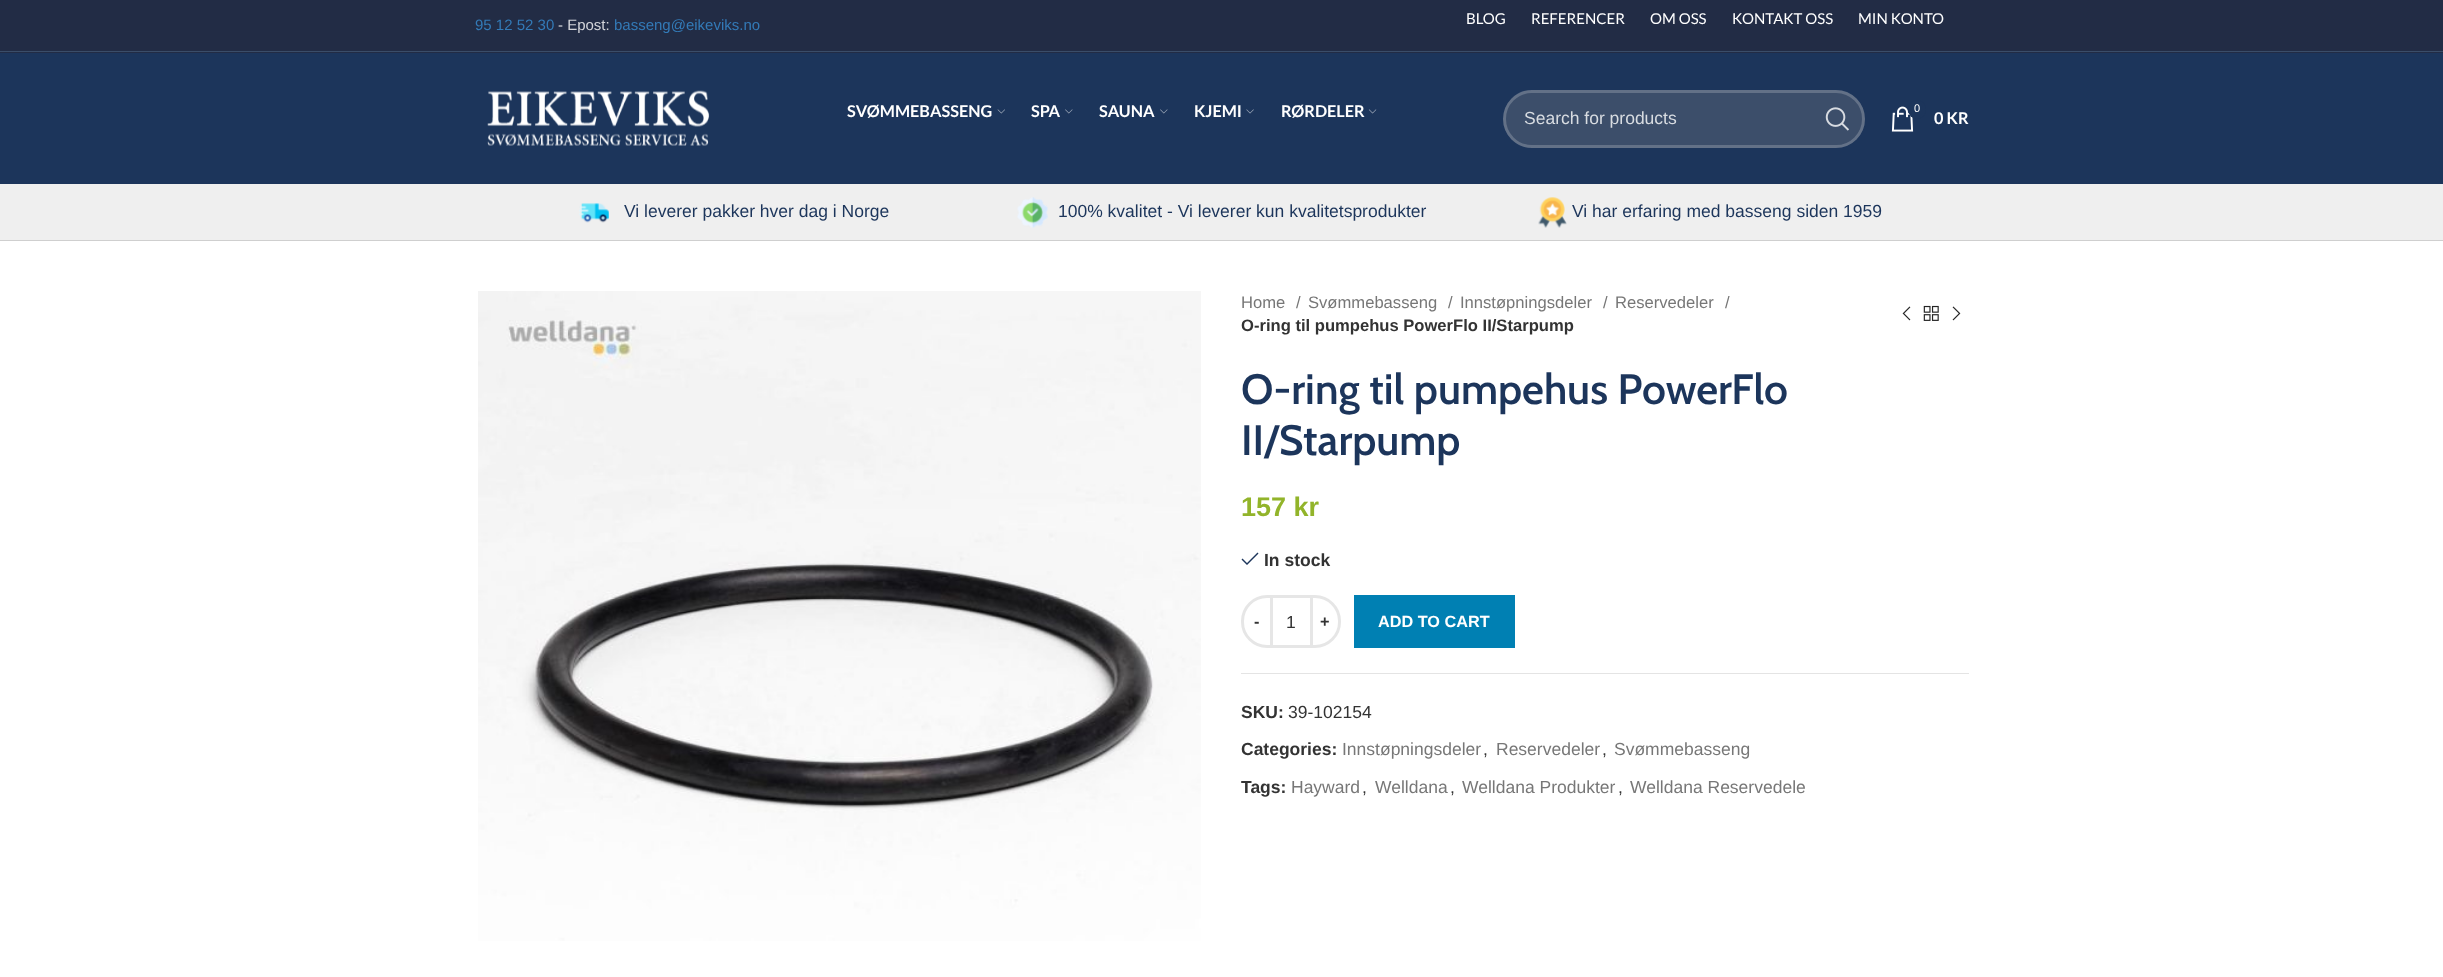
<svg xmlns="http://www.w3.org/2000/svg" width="2443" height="977">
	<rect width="100%" height="100%" fill="#FFFFFF" />
	<rect x="0" y="0" width="2443" height="53" fill="#222C45" />
	<rect x="0" y="51" width="2443" height="1" fill="#3A4D69" />
	<text x="475" y="30" font-family="Liberation Sans" font-size="15" fill="#337AB7">95 12 52 30</text>
	<text x="558" y="30" font-family="Liberation Sans" font-size="15" fill="#D3D5DA">- Epost:</text>
	<text x="614" y="30" font-family="Liberation Sans" font-size="15" fill="#337AB7">basseng@eikeviks.no</text>
	<g font-family="Lato" font-size="15" fill="#FFFFFF">
		<text x="1466" y="24">BLOG</text>
		<text x="1531" y="24">REFERENCER</text>
		<text x="1650" y="24">OM OSS</text>
		<text x="1732" y="24">KONTAKT OSS</text>
		<text x="1858" y="24">MIN KONTO</text>
	</g>
	<rect x="0" y="53" width="2443" height="131" fill="#1C355B" />
	<image x="487" y="90" width="223" height="56" href="assets/img1.png" />
	<text x="847" y="117" font-family="Lato" font-size="16.25" font-weight="700" fill="#FFFFFF">SVØMMEBASSENG</text>
	<image x="997" y="109" width="8" height="5" href="assets/img2.png" />
	<text x="1031" y="117" font-family="Lato" font-size="16.25" font-weight="700" fill="#FFFFFF">SPA</text>
	<image x="1065" y="109" width="8" height="5" href="assets/img3.png" />
	<text x="1099" y="117" font-family="Lato" font-size="16.25" font-weight="700" fill="#FFFFFF">SAUNA</text>
	<image x="1160" y="109" width="8" height="5" href="assets/img3.png" />
	<text x="1194" y="117" font-family="Lato" font-size="16.25" font-weight="700" fill="#FFFFFF">KJEMI</text>
	<image x="1246" y="109" width="8" height="5" href="assets/img4.png" />
	<text x="1281" y="117" font-family="Lato" font-size="16.25" font-weight="700" fill="#FFFFFF">RØRDELER</text>
	<image x="1368" y="109" width="9" height="5" href="assets/img5.png" />
	<rect x="1503" y="90" width="362" height="58" rx="29" fill="#3C4E6A" />
	<rect x="1504.5" y="91.5" width="359" height="55" rx="27.5" fill="none" stroke="#FFFFFF" stroke-opacity="0.2" stroke-width="3" />
	<text x="1524" y="124" font-family="Liberation Sans" font-size="17.5" fill="#D8DCE1">Search for products</text>
	<image x="1825" y="107" width="24" height="24" href="assets/img6.png" />
	<image x="1891" y="106" width="23" height="26" href="assets/img7.png" />
	<rect x="1908" y="100" width="18" height="19" rx="9" fill="#1C355B" />
	<text x="1914" y="112" font-family="Liberation Sans" font-size="11" fill="#FFFFFF">0</text>
	<text x="1934" y="124" font-family="Lato" font-size="16.25" font-weight="700" fill="#FFFFFF">0 KR</text>
	<rect x="0" y="184" width="2443" height="56" fill="#EFEFEF" />
	<rect x="0" y="240" width="2443" height="1" fill="#CFCFCF" />
	<image x="579" y="203" width="30" height="20" href="assets/img8.png" />
	<text x="624" y="217" font-family="Liberation Sans" font-size="17.5" fill="#1C355B">Vi leverer pakker hver dag i Norge</text>
	<image x="1017" y="197" width="31" height="31" href="assets/img9.png" />
	<text x="1058" y="217" font-family="Liberation Sans" font-size="17.5" fill="#1C355B">100% kvalitet - Vi leverer kun kvalitetsprodukter</text>
	<image x="1538" y="197" width="29" height="31" href="assets/img10.png" />
	<text x="1572" y="217" font-family="Liberation Sans" font-size="17.5" fill="#1C355B">Vi har erfaring med basseng siden 1959</text>
	<image x="478" y="291" width="723" height="650" href="assets/img11.png" />
	<g font-family="Liberation Sans" font-size="16.6" fill="#777777">
		<text x="1241" y="308">Home</text>
		<text x="1296" y="308">/</text>
		<text x="1308" y="308">Svømmebasseng</text>
		<text x="1448" y="308">/</text>
		<text x="1460" y="308">Innstøpningsdeler</text>
		<text x="1603" y="308">/</text>
		<text x="1615" y="308">Reservedeler</text>
		<text x="1725" y="308">/</text>
	</g>
	<text x="1241" y="331" font-family="Liberation Sans" font-size="16.6" font-weight="700" fill="#333333">O-ring til pumpehus PowerFlo II/Starpump</text>
	<image x="1902" y="306" width="9" height="15" href="assets/img12.png" />
	<image x="1923" y="305" width="16" height="16" href="assets/img13.png" />
	<image x="1952" y="306" width="9" height="15" href="assets/img14.png" />
	<g font-family="Cabin" font-size="42.5" font-weight="600" fill="#1C355B">
		<text x="1241" y="404">O-ring til pumpehus PowerFlo</text>
		<text x="1241" y="455">II/Starpump</text>
	</g>
	<text x="1241" y="516" font-family="Liberation Sans" font-size="27" font-weight="700" fill="#92B42A">157 kr</text>
	<path d="M1258.5 553.5L1257.5 552.5L1247 563L1242.5 558.5L1241.5 559.5L1247 565Z" fill="#1C355B" />
	<text x="1264" y="566" font-family="Liberation Sans" font-size="17.5" font-weight="700" fill="#333333">In stock</text>
	<path d="M1267 596.5H1271.5V646.5H1267C1253.5 646.5 1242.5 635.5 1242.5 622V621C1242.5 607.5 1253.5 596.5 1267 596.5Z" fill="none" stroke="#E6E6E6" stroke-width="3" />
	<text x="1254" y="627" font-family="Liberation Sans" font-size="16.25" font-weight="700" fill="#333333">-</text>
	<rect x="1273" y="595" width="37" height="3" fill="#E6E6E6" />
	<rect x="1273" y="645" width="37" height="3" fill="#E6E6E6" />
	<text x="1286" y="628" font-family="Liberation Sans" font-size="17.5" fill="#333333">1</text>
	<path d="M1311.5 596.5H1315C1328.5 596.5 1339.5 607.5 1339.5 621V622C1339.5 635.5 1328.5 646.5 1315 646.5H1311.5Z" fill="none" stroke="#E6E6E6" stroke-width="3" />
	<text x="1320" y="627" font-family="Liberation Sans" font-size="16.25" font-weight="700" fill="#333333">+</text>
	<rect x="1354" y="595" width="161" height="53" fill="#0080B3" />
	<text x="1378" y="627" font-family="Liberation Sans" font-size="16.25" font-weight="700" fill="#FFFFFF">ADD TO CART</text>
	<rect x="1241" y="673" width="728" height="1" fill="#E4E4E4" />
	<text x="1241" y="718" font-family="Liberation Sans" font-size="17.5" font-weight="700" fill="#333333">SKU:</text>
	<text x="1288" y="718" font-family="Liberation Sans" font-size="17.5" fill="#333333">39-102154</text>
	<text x="1241" y="755" font-family="Liberation Sans" font-size="17.5" font-weight="700" fill="#333333">Categories:</text>
	<text x="1342" y="755" font-family="Liberation Sans" font-size="17.5" fill="#777777">Innstøpningsdeler</text>
	<text x="1483" y="755" font-family="Liberation Sans" font-size="17.5" fill="#333333">,</text>
	<text x="1496" y="755" font-family="Liberation Sans" font-size="17.5" fill="#777777">Reservedeler</text>
	<text x="1602" y="755" font-family="Liberation Sans" font-size="17.5" fill="#333333">,</text>
	<text x="1614" y="755" font-family="Liberation Sans" font-size="17.5" fill="#777777">Svømmebasseng</text>
	<text x="1241" y="793" font-family="Liberation Sans" font-size="17.5" font-weight="700" fill="#333333">Tags:</text>
	<text x="1291" y="793" font-family="Liberation Sans" font-size="17.5" fill="#777777">Hayward</text>
	<text x="1362" y="793" font-family="Liberation Sans" font-size="17.5" fill="#333333">,</text>
	<text x="1375" y="793" font-family="Liberation Sans" font-size="17.5" fill="#777777">Welldana</text>
	<text x="1450" y="793" font-family="Liberation Sans" font-size="17.5" fill="#333333">,</text>
	<text x="1462" y="793" font-family="Liberation Sans" font-size="17.5" fill="#777777">Welldana Produkter</text>
	<text x="1618" y="793" font-family="Liberation Sans" font-size="17.5" fill="#333333">,</text>
	<text x="1630" y="793" font-family="Liberation Sans" font-size="17.5" fill="#777777">Welldana Reservedele</text>
</svg>
